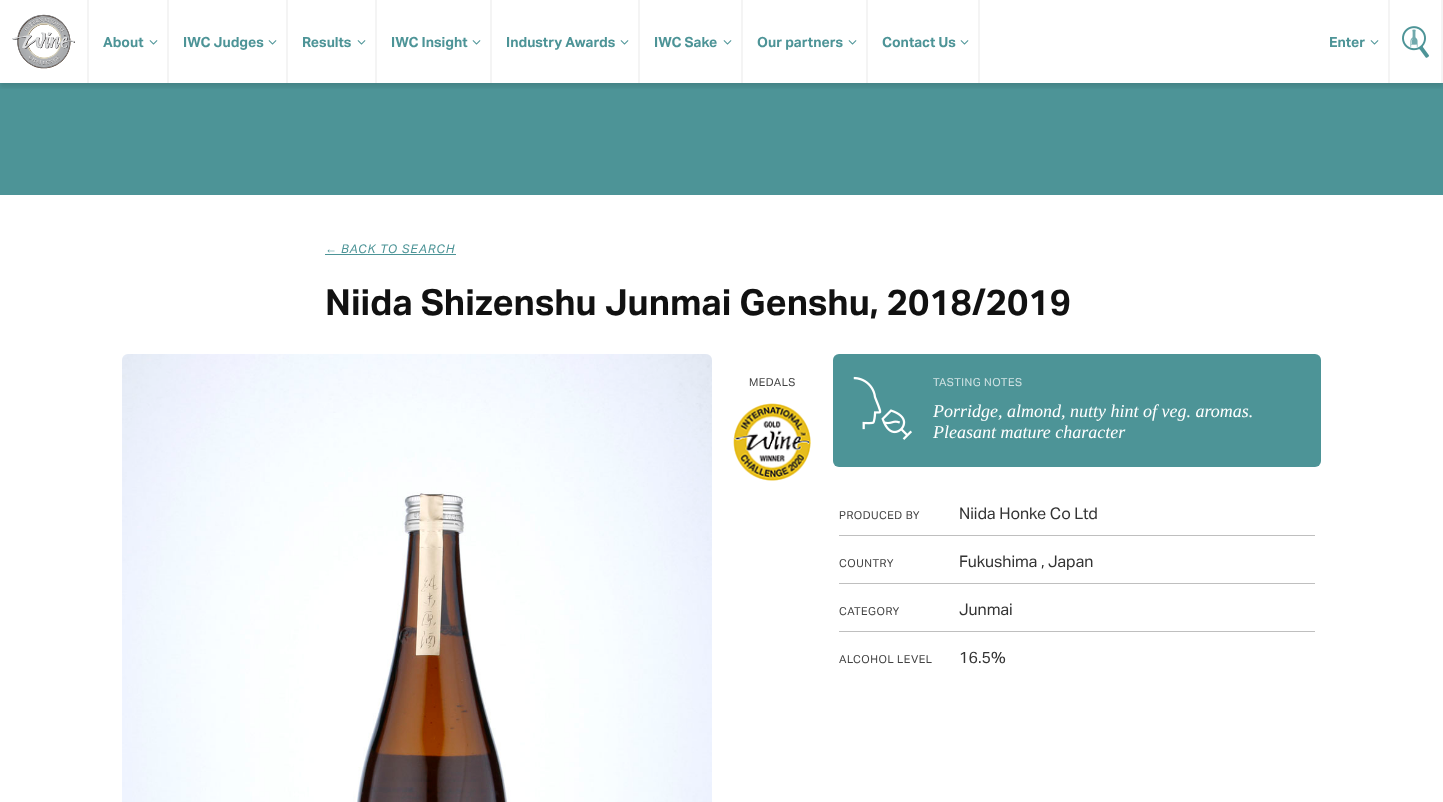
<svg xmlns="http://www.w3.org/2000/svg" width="1443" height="802">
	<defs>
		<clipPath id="clip1"><rect x="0" y="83" width="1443" height="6" /></clipPath>
	</defs>
	<rect width="100%" height="100%" fill="#FFFFFF" />
	<rect x="0" y="83" width="1443" height="112" fill="#4D9497" />
	<g clip-path="url(#clip1)">
		<rect x="0" y="4" width="1443" height="83" fill="#000000" fill-opacity="0.1" filter="blur(2px)" />
	</g>
	<rect x="87" y="0" width="2" height="83" fill="#F4F4F4" />
	<image x="12" y="14" width="63" height="55" href="assets/img1.png" />
	<rect x="167" y="0" width="2" height="83" fill="#F4F4F4" />
	<text x="103" y="47" font-family="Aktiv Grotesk" font-size="14" font-weight="700" fill="#4D9497">About</text>
	<image x="149" y="40" width="9" height="5" href="assets/img2.png" />
	<rect x="286" y="0" width="2" height="83" fill="#F4F4F4" />
	<text x="183" y="47" font-family="Aktiv Grotesk" font-size="14" font-weight="700" fill="#4D9497">IWC Judges</text>
	<image x="268" y="40" width="9" height="5" href="assets/img2.png" />
	<rect x="375" y="0" width="2" height="83" fill="#F4F4F4" />
	<text x="302" y="47" font-family="Aktiv Grotesk" font-size="14" font-weight="700" fill="#4D9497">Results</text>
	<image x="357" y="40" width="9" height="5" href="assets/img2.png" />
	<rect x="490" y="0" width="2" height="83" fill="#F4F4F4" />
	<text x="391" y="47" font-family="Aktiv Grotesk" font-size="14" font-weight="700" fill="#4D9497">IWC Insight</text>
	<image x="472" y="40" width="9" height="5" href="assets/img2.png" />
	<rect x="638" y="0" width="2" height="83" fill="#F4F4F4" />
	<text x="506" y="47" font-family="Aktiv Grotesk" font-size="14" font-weight="700" fill="#4D9497">Industry Awards</text>
	<image x="620" y="40" width="9" height="5" href="assets/img2.png" />
	<rect x="741" y="0" width="2" height="83" fill="#F4F4F4" />
	<text x="654" y="47" font-family="Aktiv Grotesk" font-size="14" font-weight="700" fill="#4D9497">IWC Sake</text>
	<image x="723" y="40" width="9" height="5" href="assets/img2.png" />
	<rect x="866" y="0" width="2" height="83" fill="#F4F4F4" />
	<text x="757" y="47" font-family="Aktiv Grotesk" font-size="14" font-weight="700" fill="#4D9497">Our partners</text>
	<image x="848" y="40" width="9" height="5" href="assets/img2.png" />
	<rect x="978" y="0" width="2" height="83" fill="#F4F4F4" />
	<text x="882" y="47" font-family="Aktiv Grotesk" font-size="14" font-weight="700" fill="#4D9497">Contact Us</text>
	<image x="960" y="40" width="9" height="5" href="assets/img2.png" />
	<rect x="1388" y="0" width="2" height="83" fill="#F4F4F4" />
	<text x="1329" y="47" font-family="Aktiv Grotesk" font-size="14" font-weight="700" fill="#4D9497">Enter</text>
	<image x="1370" y="40" width="9" height="5" href="assets/img2.png" />
	<rect x="1441" y="0" width="2" height="83" fill="#F4F4F4" />
	<image x="1402" y="26" width="27" height="32" href="assets/img3.png" />
	<text x="325" y="253" font-family="Liberation Sans" font-size="12" font-style="italic" letter-spacing="1" fill="#4D9497">←</text>
	<rect x="325" y="254" width="131" height="1" fill="#4D9497" />
	<text x="341" y="253" font-family="Aktiv Grotesk" font-size="12" font-style="italic" letter-spacing="1" fill="#4D9497">BACK TO SEARCH</text>
	<text x="325" y="315" font-family="Aktiv Grotesk" font-size="36" font-weight="700" fill="#111111">Niida Shizenshu Junmai Genshu, 2018/2019</text>
	<image x="122" y="354" width="590" height="448" href="assets/img4.png" />
	<text x="749" y="386" font-family="Aktiv Grotesk" font-size="11" letter-spacing="0.5" fill="#424242">MEDALS</text>
	<image x="733" y="403" width="78" height="78" href="assets/img5.png" />
	<rect x="833" y="354" width="488" height="113" rx="6" fill="#4D9497" />
	<image x="853" y="376" width="59" height="64" href="assets/img6.png" />
	<text x="933" y="386" font-family="Aktiv Grotesk" font-size="11" letter-spacing="0.5" fill="#D1E3E4">TASTING NOTES</text>
	<g font-family="Liberation Serif" font-size="18" font-style="italic" fill="#FFFFFF">
		<text x="933" y="417">Porridge, almond, nutty hint of veg. aromas.</text>
		<text x="933" y="438">Pleasant mature character</text>
	</g>
	<rect x="839" y="535" width="476" height="1" fill="#BFBFBF" />
	<text x="839" y="519" font-family="Aktiv Grotesk" font-size="11" letter-spacing="0.5" fill="#424242">PRODUCED BY</text>
	<text x="959" y="519" font-family="Aktiv Grotesk" font-size="16" fill="#333333">Niida Honke Co Ltd</text>
	<rect x="839" y="583" width="476" height="1" fill="#BFBFBF" />
	<text x="839" y="567" font-family="Aktiv Grotesk" font-size="11" letter-spacing="0.5" fill="#424242">COUNTRY</text>
	<text x="959" y="567" font-family="Aktiv Grotesk" font-size="16" fill="#333333">Fukushima , Japan</text>
	<rect x="839" y="631" width="476" height="1" fill="#BFBFBF" />
	<text x="839" y="615" font-family="Aktiv Grotesk" font-size="11" letter-spacing="0.5" fill="#424242">CATEGORY</text>
	<text x="959" y="615" font-family="Aktiv Grotesk" font-size="16" fill="#333333">Junmai</text>
	<text x="839" y="663" font-family="Aktiv Grotesk" font-size="11" letter-spacing="0.5" fill="#424242">ALCOHOL LEVEL</text>
	<text x="959" y="663" font-family="Aktiv Grotesk" font-size="16" fill="#333333">16.5%</text>
</svg>
